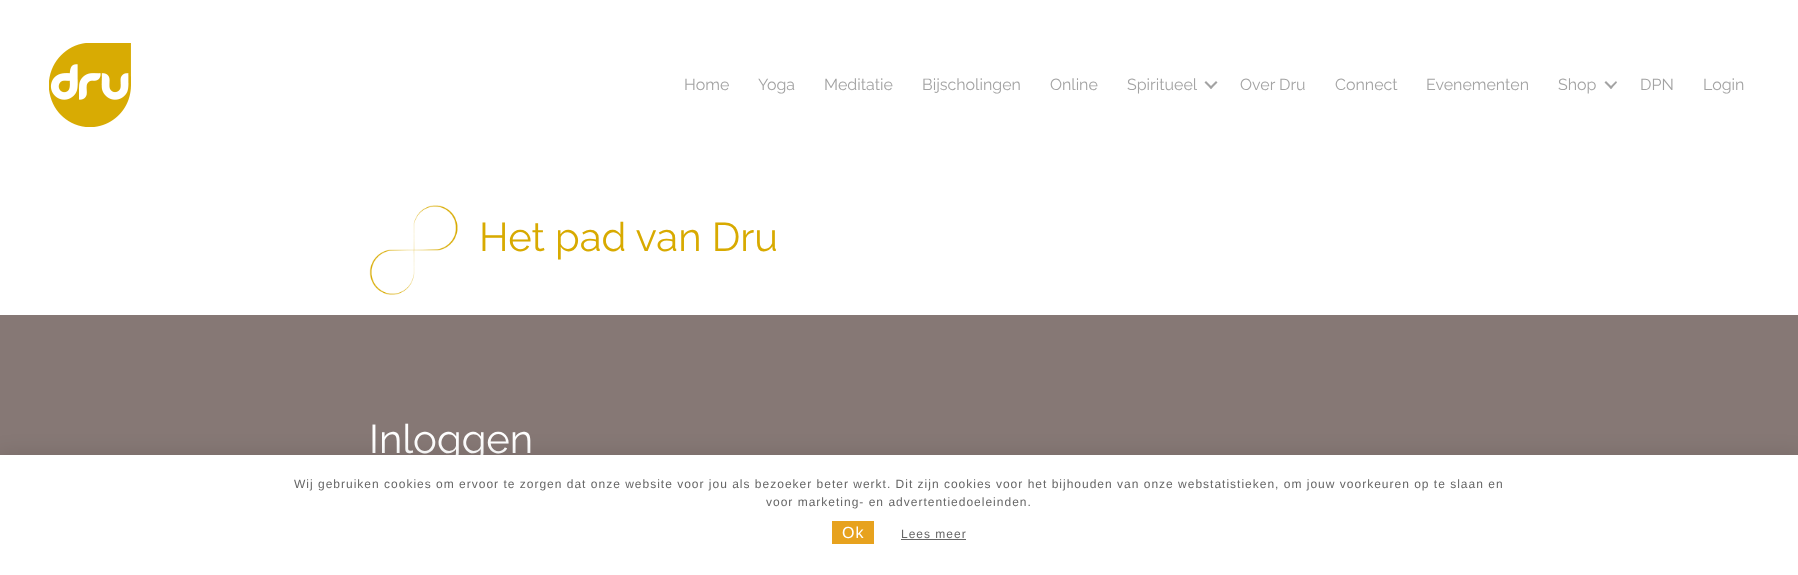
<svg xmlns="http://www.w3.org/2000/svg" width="1798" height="575">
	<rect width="100%" height="100%" fill="#FFFFFF" />
	<image x="49" y="43" width="82" height="84" href="assets/img1.png" />
	<g font-family="Raleway" font-size="16" fill="#A3A3A3">
		<text x="684" y="90">Home</text>
		<text x="758" y="90">Yoga</text>
		<text x="824" y="90">Meditatie</text>
		<text x="922" y="90">Bijscholingen</text>
		<text x="1050" y="90">Online</text>
		<text x="1127" y="90">Spiritueel</text>
	</g>
	<path d="M1216 81L1217.5 82.5L1211 89L1209.5 87.5Z" fill="#A3A3A3" />
	<path d="M1206 81L1212.5 87.5L1211 89L1204.5 82.5Z" fill="#A3A3A3" />
	<g font-family="Raleway" font-size="16" fill="#A3A3A3">
		<text x="1240" y="90">Over Dru</text>
		<text x="1335" y="90">Connect</text>
		<text x="1426" y="90">Evenementen</text>
		<text x="1558" y="90">Shop</text>
	</g>
	<path d="M1616 81L1617 82.5L1611 89L1609.5 87.5Z" fill="#A3A3A3" />
	<path d="M1606 81L1612.5 87.5L1611 89L1604.5 82.5Z" fill="#A3A3A3" />
	<g font-family="Raleway" font-size="16" fill="#A3A3A3">
		<text x="1640" y="90">DPN</text>
		<text x="1703" y="90">Login</text>
	</g>
	<image x="369" y="205" width="89" height="90" href="assets/img2.png" />
	<text x="479" y="251" font-family="Raleway" font-size="40" fill="#D8AA00">Het pad van Dru</text>
	<rect x="0" y="315" width="1798" height="140" fill="#867875" />
	<text x="369" y="453" font-family="Raleway" font-size="40" fill="#FFFFFF">Inloggen</text>
	<rect x="-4" y="456" width="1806" height="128" fill="#000000" fill-opacity="0.12" filter="blur(11px)" />
	<rect x="0" y="455" width="1798" height="120" fill="#FFFFFF" />
	<g font-family="Liberation Sans" font-size="12" letter-spacing="1" fill="#666666">
		<text x="294" y="488">Wij gebruiken cookies om ervoor te zorgen dat onze website voor jou als bezoeker beter werkt. Dit zijn cookies voor het bijhouden van onze webstatistieken, om jouw voorkeuren op te slaan en</text>
		<text x="766" y="506">voor marketing- en advertentiedoeleinden.</text>
	</g>
	<rect x="832" y="521" width="42" height="23" fill="#E7A21E" />
	<text x="842" y="538" font-family="Liberation Sans" font-size="16" letter-spacing="1" fill="#FFFFFF">Ok</text>
	<text x="901" y="538" font-family="Liberation Sans" font-size="12" letter-spacing="1" fill="#666666">Lees meer</text>
	<rect x="901" y="539" width="65" height="1" fill="#666666" />
</svg>
